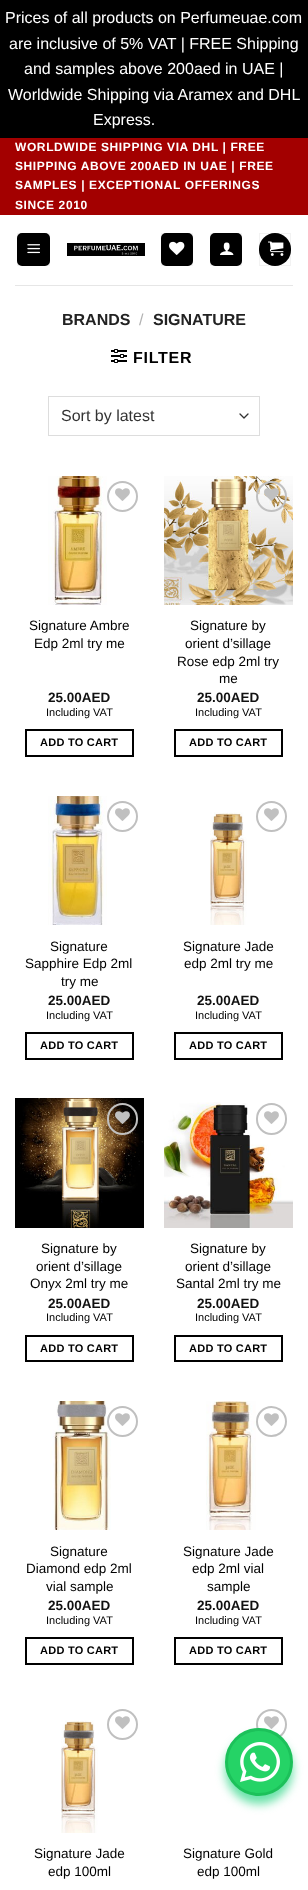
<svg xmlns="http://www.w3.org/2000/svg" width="308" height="1890">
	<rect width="100%" height="100%" fill="#FFFFFF" />
	<rect x="0" y="0" width="308" height="138" fill="#000000" />
	<g font-family="Liberation Sans" font-size="16" fill="#FFFFFF">
		<text x="5" y="23">Prices of all products on Perfumeuae.com</text>
		<text x="9" y="49">are inclusive of 5% VAT | FREE Shipping</text>
		<text x="24" y="74">and samples above 200aed in UAE |</text>
		<text x="8" y="100">Worldwide Shipping via Aramex and DHL</text>
		<text x="93" y="125">Express.</text>
	</g>
	<rect x="0" y="138" width="308" height="77" fill="#A30000" />
	<g font-family="Liberation Sans" font-size="12" font-weight="700" letter-spacing="0.6" fill="#FFFFFF">
		<text x="15" y="151">WORLDWIDE SHIPPING VIA DHL | FREE</text>
		<text x="15" y="170">SHIPPING ABOVE 200AED IN UAE | FREE</text>
		<text x="15" y="189">SAMPLES | EXCEPTIONAL OFFERINGS</text>
		<text x="15" y="209">SINCE 2010</text>
	</g>
	<rect x="17" y="233" width="33" height="33" rx="5" fill="#000000" />
	<rect x="17.5" y="233.5" width="32" height="32" fill="none" stroke="#000000" stroke-opacity="0.05" />
	<image x="27" y="244" width="13" height="10" href="assets/img1.png" />
	<image x="67" y="243" width="78" height="13" href="assets/img2.png" />
	<rect x="161" y="233" width="32" height="33" rx="5" fill="#000000" />
	<rect x="161.5" y="233.5" width="31" height="32" fill="none" stroke="#000000" stroke-opacity="0.05" />
	<image x="169" y="241" width="16" height="14" href="assets/img3.png" />
	<rect x="210" y="233" width="32" height="33" rx="5" fill="#000000" />
	<rect x="210.5" y="233.5" width="31" height="32" fill="none" stroke="#000000" stroke-opacity="0.05" />
	<image x="220" y="242" width="14" height="13" href="assets/img4.png" />
	<rect x="259" y="233" width="32" height="33" rx="16" fill="#000000" />
	<rect x="259.5" y="233.5" width="31" height="32" fill="none" stroke="#000000" stroke-opacity="0.05" />
	<image x="268" y="241" width="16" height="15" href="assets/img5.png" />
	<rect x="15" y="285" width="278" height="1" fill="#E6E6E6" />
	<text x="62" y="325" font-family="Liberation Sans" font-size="16" font-weight="700" fill="#222222">BRANDS</text>
	<text x="139" y="325" font-family="Liberation Sans" font-size="16" fill="#B2B2B2">/</text>
	<text x="153" y="325" font-family="Liberation Sans" font-size="16" font-weight="700" fill="#222222">SIGNATURE</text>
	<image x="111" y="349" width="16" height="14" href="assets/img6.png" />
	<text x="133" y="363" font-family="Liberation Sans" font-size="16" font-weight="700" letter-spacing="0.75" fill="#000000">FILTER</text>
	<path d="M240 414L244 418L248 414" fill="none" stroke="#333333" stroke-width="1.3" stroke-linecap="round" stroke-linejoin="round" />
	<rect x="48.5" y="396.5" width="211" height="39" fill="none" stroke="#DDDDDD" />
	<text x="61" y="421" font-family="Liberation Sans" font-size="16" fill="#333333">Sort by latest</text>
	<image x="48" y="476" width="59" height="129" href="assets/img7.png" />
	<circle cx="122.5" cy="496.5" r="14.5" fill="none" stroke="#C0C0C0" stroke-width="2" />
	<image x="115" y="488" width="15" height="13" href="assets/img8.png" />
	<g font-family="Liberation Sans" font-size="13.5" fill="#000000">
		<text x="29" y="630">Signature Ambre</text>
		<text x="34" y="648">Edp 2ml try me</text>
	</g>
	<text x="48" y="702" font-family="Liberation Sans" font-size="13.5" font-weight="700" fill="#111111">25.00AED</text>
	<text x="46" y="716" font-family="Liberation Sans" font-size="11" fill="#000000">Including VAT</text>
	<rect x="26" y="730" width="107" height="26" fill="none" stroke="#000000" stroke-width="2" />
	<text x="40" y="746" font-family="Liberation Sans" font-size="11" font-weight="700" letter-spacing="0.25" fill="#000000">ADD TO CART</text>
	<image x="164" y="476" width="129" height="129" href="assets/img9.png" />
	<circle cx="271.5" cy="496.5" r="14.5" fill="none" stroke="#C0C0C0" stroke-width="2" />
	<image x="264" y="488" width="15" height="13" href="assets/img10.png" />
	<g font-family="Liberation Sans" font-size="13.5" fill="#000000">
		<text x="190" y="630">Signature by</text>
		<text x="185" y="648">orient d’sillage</text>
		<text x="177" y="666">Rose edp 2ml try</text>
		<text x="219" y="683">me</text>
	</g>
	<text x="197" y="702" font-family="Liberation Sans" font-size="13.5" font-weight="700" fill="#111111">25.00AED</text>
	<text x="195" y="716" font-family="Liberation Sans" font-size="11" fill="#000000">Including VAT</text>
	<rect x="175" y="730" width="107" height="26" fill="none" stroke="#000000" stroke-width="2" />
	<text x="189" y="746" font-family="Liberation Sans" font-size="11" font-weight="700" letter-spacing="0.25" fill="#000000">ADD TO CART</text>
	<image x="48" y="796" width="59" height="129" href="assets/img11.png" />
	<circle cx="122.5" cy="816.5" r="14.5" fill="none" stroke="#C0C0C0" stroke-width="2" />
	<image x="115" y="808" width="15" height="13" href="assets/img8.png" />
	<g font-family="Liberation Sans" font-size="13.5" fill="#000000">
		<text x="50" y="951">Signature</text>
		<text x="25" y="968">Sapphire Edp 2ml</text>
		<text x="61" y="986">try me</text>
	</g>
	<text x="48" y="1005" font-family="Liberation Sans" font-size="13.5" font-weight="700" fill="#111111">25.00AED</text>
	<text x="46" y="1019" font-family="Liberation Sans" font-size="11" fill="#000000">Including VAT</text>
	<rect x="26" y="1033" width="107" height="26" fill="none" stroke="#000000" stroke-width="2" />
	<text x="40" y="1049" font-family="Liberation Sans" font-size="11" font-weight="700" letter-spacing="0.25" fill="#000000">ADD TO CART</text>
	<image x="210" y="812" width="37" height="113" href="assets/img12.png" />
	<circle cx="271.5" cy="816.5" r="14.5" fill="none" stroke="#C0C0C0" stroke-width="2" />
	<image x="264" y="808" width="15" height="13" href="assets/img8.png" />
	<g font-family="Liberation Sans" font-size="13.5" fill="#000000">
		<text x="183" y="951">Signature Jade</text>
		<text x="184" y="968">edp 2ml try me</text>
	</g>
	<text x="197" y="1005" font-family="Liberation Sans" font-size="13.5" font-weight="700" fill="#111111">25.00AED</text>
	<text x="195" y="1019" font-family="Liberation Sans" font-size="11" fill="#000000">Including VAT</text>
	<rect x="175" y="1033" width="107" height="26" fill="none" stroke="#000000" stroke-width="2" />
	<text x="189" y="1049" font-family="Liberation Sans" font-size="11" font-weight="700" letter-spacing="0.25" fill="#000000">ADD TO CART</text>
	<image x="15" y="1098" width="129" height="130" href="assets/img13.png" />
	<rect x="108" y="1104" width="29" height="30" rx="14.5" fill="none" stroke="#C0C0C0" stroke-width="2" />
	<image x="115" y="1111" width="15" height="13" href="assets/img14.png" />
	<g font-family="Liberation Sans" font-size="13.5" fill="#000000">
		<text x="41" y="1253">Signature by</text>
		<text x="36" y="1271">orient d’sillage</text>
		<text x="30" y="1288">Onyx 2ml try me</text>
	</g>
	<text x="48" y="1308" font-family="Liberation Sans" font-size="13.5" font-weight="700" fill="#111111">25.00AED</text>
	<text x="46" y="1321" font-family="Liberation Sans" font-size="11" fill="#000000">Including VAT</text>
	<rect x="26" y="1336" width="107" height="25" fill="none" stroke="#000000" stroke-width="2" />
	<text x="40" y="1352" font-family="Liberation Sans" font-size="11" font-weight="700" letter-spacing="0.25" fill="#000000">ADD TO CART</text>
	<image x="164" y="1102" width="129" height="126" href="assets/img15.png" />
	<rect x="257" y="1104" width="29" height="30" rx="14.5" fill="none" stroke="#C0C0C0" stroke-width="2" />
	<image x="264" y="1111" width="15" height="13" href="assets/img8.png" />
	<g font-family="Liberation Sans" font-size="13.5" fill="#000000">
		<text x="190" y="1253">Signature by</text>
		<text x="185" y="1271">orient d’sillage</text>
		<text x="176" y="1288">Santal 2ml try me</text>
	</g>
	<text x="197" y="1308" font-family="Liberation Sans" font-size="13.5" font-weight="700" fill="#111111">25.00AED</text>
	<text x="195" y="1321" font-family="Liberation Sans" font-size="11" fill="#000000">Including VAT</text>
	<rect x="175" y="1336" width="107" height="25" fill="none" stroke="#000000" stroke-width="2" />
	<text x="189" y="1352" font-family="Liberation Sans" font-size="11" font-weight="700" letter-spacing="0.25" fill="#000000">ADD TO CART</text>
	<image x="50" y="1401" width="61" height="129" href="assets/img16.png" />
	<circle cx="122.5" cy="1421.5" r="14.5" fill="none" stroke="#C0C0C0" stroke-width="2" />
	<image x="115" y="1413" width="15" height="13" href="assets/img8.png" />
	<g font-family="Liberation Sans" font-size="13.5" fill="#000000">
		<text x="50" y="1556">Signature</text>
		<text x="26" y="1573">Diamond edp 2ml</text>
		<text x="46" y="1591">vial sample</text>
	</g>
	<text x="48" y="1610" font-family="Liberation Sans" font-size="13.5" font-weight="700" fill="#111111">25.00AED</text>
	<text x="46" y="1624" font-family="Liberation Sans" font-size="11" fill="#000000">Including VAT</text>
	<rect x="26" y="1638" width="107" height="26" fill="none" stroke="#000000" stroke-width="2" />
	<text x="40" y="1654" font-family="Liberation Sans" font-size="11" font-weight="700" letter-spacing="0.25" fill="#000000">ADD TO CART</text>
	<image x="206" y="1401" width="50" height="129" href="assets/img17.png" />
	<circle cx="271.5" cy="1421.5" r="14.5" fill="none" stroke="#C0C0C0" stroke-width="2" />
	<image x="264" y="1413" width="15" height="13" href="assets/img8.png" />
	<g font-family="Liberation Sans" font-size="13.5" fill="#000000">
		<text x="183" y="1556">Signature Jade</text>
		<text x="192" y="1573">edp 2ml vial</text>
		<text x="207" y="1591">sample</text>
	</g>
	<text x="197" y="1610" font-family="Liberation Sans" font-size="13.5" font-weight="700" fill="#111111">25.00AED</text>
	<text x="195" y="1624" font-family="Liberation Sans" font-size="11" fill="#000000">Including VAT</text>
	<rect x="175" y="1638" width="107" height="26" fill="none" stroke="#000000" stroke-width="2" />
	<text x="189" y="1654" font-family="Liberation Sans" font-size="11" font-weight="700" letter-spacing="0.25" fill="#000000">ADD TO CART</text>
	<image x="61" y="1720" width="37" height="113" href="assets/img18.png" />
	<circle cx="122.5" cy="1724.5" r="14.5" fill="none" stroke="#C0C0C0" stroke-width="2" />
	<image x="115" y="1716" width="15" height="13" href="assets/img8.png" />
	<g font-family="Liberation Sans" font-size="13.5" fill="#000000">
		<text x="34" y="1858">Signature Jade</text>
		<text x="48" y="1876">edp 100ml</text>
	</g>
	<circle cx="271.5" cy="1724.5" r="14.5" fill="none" stroke="#C0C0C0" stroke-width="2" />
	<image x="264" y="1716" width="15" height="13" href="assets/img8.png" />
	<g font-family="Liberation Sans" font-size="13.5" fill="#000000">
		<text x="183" y="1858">Signature Gold</text>
		<text x="197" y="1876">edp 100ml</text>
	</g>
	<rect x="225" y="1736" width="68" height="68" rx="34" fill="#07CE70" fill-opacity="0.6" filter="blur(5px)" />
	<circle cx="259" cy="1762" r="32.5" fill="#25D366" stroke="#1CC15A" stroke-width="3" />
	<image x="240" y="1742" width="40" height="40" href="assets/img19.png" />
</svg>
